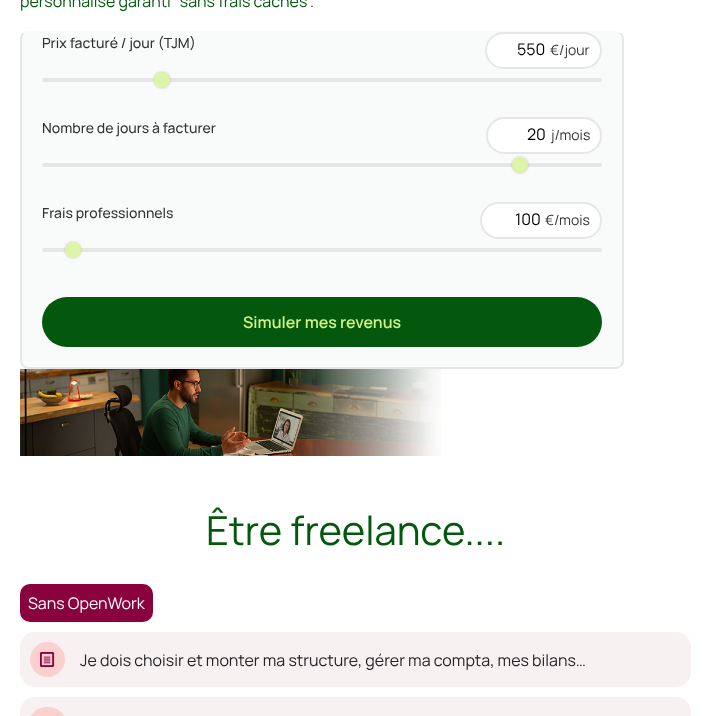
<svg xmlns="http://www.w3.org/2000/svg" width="711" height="716">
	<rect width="100%" height="100%" fill="#FFFFFF" />
	<text x="20" y="7" font-family="Manrope" font-size="16" fill="#04580E">personnalisé garanti "sans frais cachés".</text>
	<rect x="20" y="31" width="604" height="338" rx="8" fill="#F9FBFA" />
	<path d="M624 361V39C624 37 623 34 621 33H619C621 35 622 37 622 39V361C622 362 621 364 620 365L622 366C623 365 624 363 624 361Z" fill="#E6E6E6" />
	<path d="M28 369H616C618 369 620 368 622 366L620 365C619 366 618 367 616 367H28C26 367 25 366 24 365L22 366C24 368 26 369 28 369Z" fill="#E6E6E6" />
	<path d="M20 39V361C20 363 21 365 22 366L24 365C23 364 22 362 22 361V39C22 37 23 35 25 33H23C21 34 20 37 20 39Z" fill="#E6E6E6" />
	<text x="42" y="48" font-family="Manrope" font-size="14" font-weight="500" fill="#333333">Prix facturé / jour (TJM)</text>
	<rect x="486" y="33" width="115" height="35" rx="17.5" fill="#FFFFFF" stroke="#E6E6E6" stroke-width="2" />
	<text x="517" y="55" font-family="Manrope" font-size="16" fill="#000000">550</text>
	<text x="550" y="55" font-family="Manrope" font-size="14" fill="#333333">€/jour</text>
	<rect x="42" y="78" width="560" height="4" rx="2" fill="#E5E6E6" />
	<rect x="154" y="72" width="16" height="16" rx="8" fill="#4B4B4B" fill-opacity="0.3" filter="blur(1px)" />
	<circle cx="162" cy="80" r="8" fill="#DDF5A6" />
	<text x="42" y="133" font-family="Manrope" font-size="14" font-weight="500" fill="#333333">Nombre de jours à facturer</text>
	<rect x="487" y="118" width="114" height="35" rx="17.5" fill="#FFFFFF" stroke="#E6E6E6" stroke-width="2" />
	<text x="527" y="140" font-family="Manrope" font-size="16" fill="#000000">20</text>
	<text x="551" y="140" font-family="Manrope" font-size="14" fill="#333333">j/mois</text>
	<rect x="42" y="163" width="560" height="4" rx="2" fill="#E5E6E6" />
	<rect x="512" y="157" width="16" height="16" rx="8" fill="#4B4B4B" fill-opacity="0.3" filter="blur(1px)" />
	<circle cx="520" cy="165" r="8" fill="#DDF5A6" />
	<text x="42" y="218" font-family="Manrope" font-size="14" font-weight="500" fill="#333333">Frais professionnels</text>
	<rect x="481" y="203" width="120" height="35" rx="17.5" fill="#FFFFFF" stroke="#E6E6E6" stroke-width="2" />
	<text x="515" y="225" font-family="Manrope" font-size="16" fill="#000000">100</text>
	<text x="545" y="225" font-family="Manrope" font-size="14" fill="#333333">€/mois</text>
	<rect x="42" y="248" width="560" height="4" rx="2" fill="#E5E6E6" />
	<rect x="65" y="242" width="16" height="16" rx="8" fill="#4B4B4B" fill-opacity="0.3" filter="blur(1px)" />
	<circle cx="73" cy="250" r="8" fill="#DDF5A6" />
	<rect x="42" y="297" width="560" height="50" rx="25" fill="#04580E" />
	<text x="243" y="328" font-family="Manrope" font-size="16" font-weight="600" fill="#D1F382">Simuler mes revenus</text>
	<image x="20" y="369" width="421" height="87" href="assets/img1.png" />
	<text x="206" y="545" font-family="Manrope" font-size="40" fill="#04580E">Être freelance....</text>
	<rect x="20" y="584" width="133" height="38" rx="10" fill="#89023E" />
	<text x="28" y="609" font-family="Manrope" font-size="16" fill="#FFFFFF">Sans OpenWork</text>
	<rect x="20" y="632" width="671" height="55" rx="15" fill="#F8F1F1" />
	<circle cx="47.5" cy="659.5" r="17.5" fill="#FDD0D0" />
	<image x="40" y="652" width="15" height="15" href="assets/img2.png" />
	<text x="80" y="666" font-family="Manrope" font-size="16" fill="#222529">Je dois choisir et monter ma structure, gérer ma compta, mes bilans…</text>
	<rect x="20" y="697" width="671" height="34" rx="15" fill="#F8F1F1" />
	<rect x="30" y="707" width="35" height="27" rx="17.5" fill="#FDD0D0" />
</svg>
